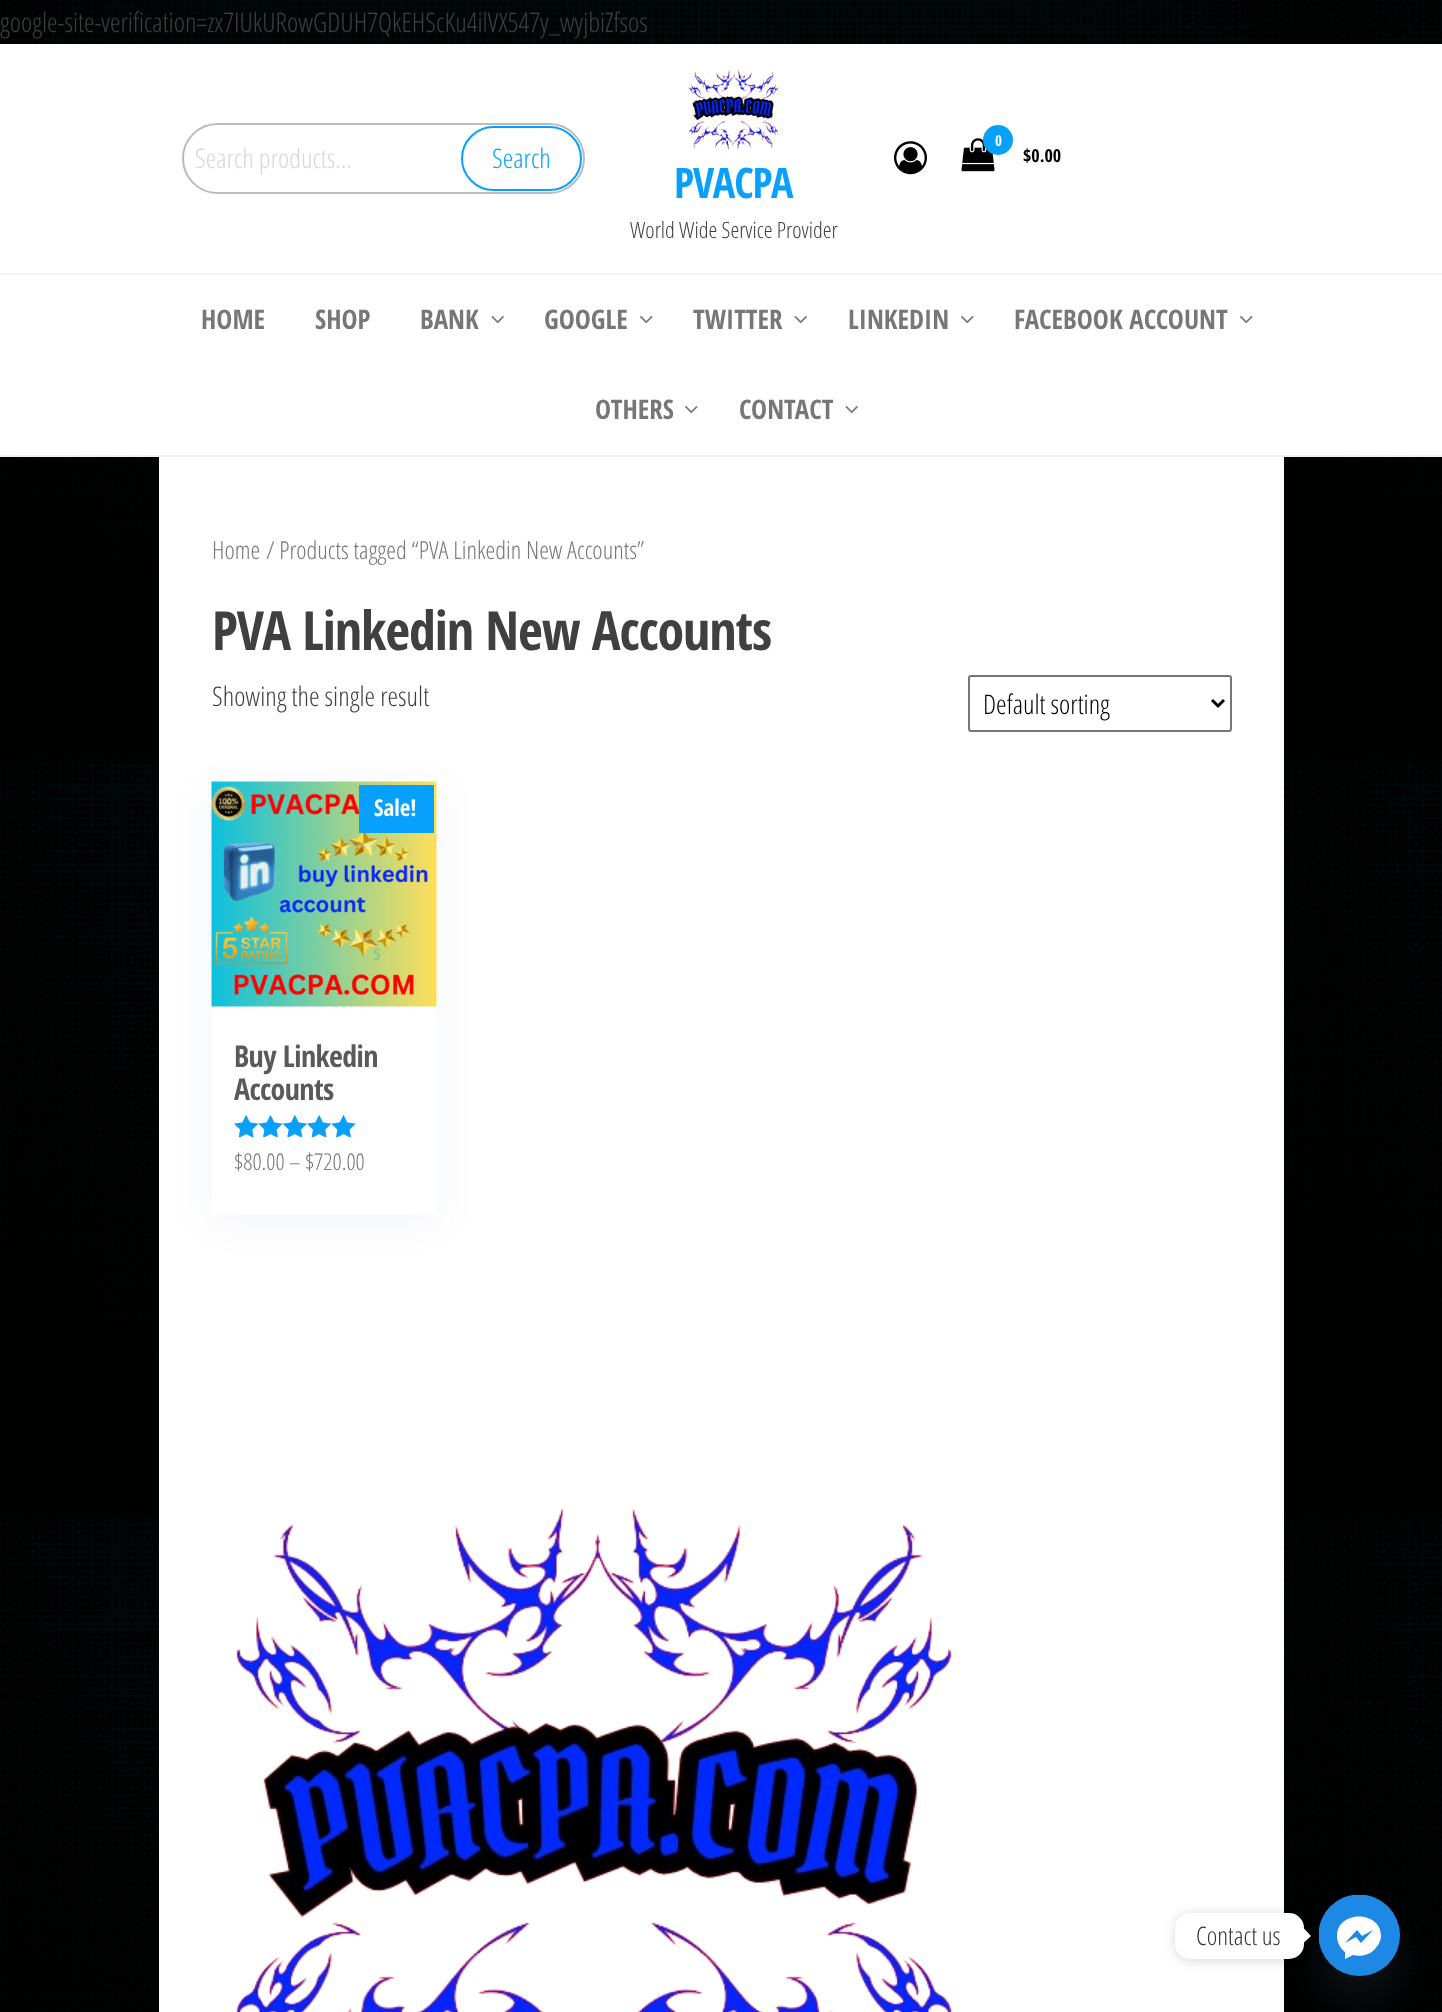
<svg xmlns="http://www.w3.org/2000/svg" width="1442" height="2012">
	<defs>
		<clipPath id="clip1"><rect x="1319" y="1895" width="81" height="81" /></clipPath>
	</defs>
	<rect width="100%" height="100%" fill="#FFFFFF" />
	<image x="0" y="0" width="1442" height="2012" href="assets/img1.png" />
	<text x="0" y="32" font-family="Open Sans Condensed" font-size="27" font-weight="300" fill="#404040">google-site-verification=zx7IUkURowGDUH7QkEHScKu4ilVX547y_wyjbiZfsos</text>
	<rect x="0" y="44" width="1442" height="229" fill="#FFFFFF" />
	<rect x="183" y="124" width="401" height="69" rx="34.5" fill="none" stroke="#BBBBBB" stroke-width="2" />
	<text x="195" y="168" font-family="Open Sans Condensed" font-size="27" font-weight="300" fill="#D7D7D7">Search products…</text>
	<rect x="462" y="127" width="119" height="63" rx="31.5" fill="none" stroke="#07A1FD" stroke-width="2" />
	<text x="492" y="168" font-family="Open Sans Condensed" font-size="27" font-weight="300" fill="#07A1FD">Search</text>
	<image x="894" y="141" width="33" height="34" href="assets/img2.png" />
	<image x="961" y="138" width="34" height="34" href="assets/img3.png" />
	<circle cx="998" cy="140" r="15" fill="#07A1FD" />
	<text x="995" y="146" font-family="Open Sans Condensed" font-size="15" font-weight="700" fill="#FFFFFF">0</text>
	<text x="1023" y="162" font-family="Open Sans Condensed" font-size="18" font-weight="700" fill="#000000">$0.00</text>
	<image x="689" y="70" width="89" height="80" href="assets/img4.png" />
	<text x="674" y="198" font-family="Open Sans Condensed" font-size="42" font-weight="700" letter-spacing="-1" fill="#07A1FD">PVACPA</text>
	<text x="630" y="238" font-family="Open Sans Condensed" font-size="22.5" font-weight="300" fill="#404040">World Wide Service Provider</text>
	<rect x="0" y="275" width="1442" height="180" fill="#FFFFFF" />
	<rect x="0" y="273" width="1442" height="2" fill="#F2F2F2" />
	<rect x="0" y="455" width="1442" height="2" fill="#F2F2F2" />
	<g font-family="Open Sans Condensed" font-size="27" font-weight="700" fill="#777777">
		<text x="201" y="329">HOME</text>
		<text x="315" y="329">SHOP</text>
		<text x="420" y="329">BANK</text>
	</g>
	<image x="491" y="316" width="13" height="8" href="assets/img5.png" />
	<text x="544" y="329" font-family="Open Sans Condensed" font-size="27" font-weight="700" fill="#777777">GOOGLE</text>
	<image x="640" y="316" width="13" height="8" href="assets/img6.png" />
	<text x="693" y="329" font-family="Open Sans Condensed" font-size="27" font-weight="700" fill="#777777">TWITTER</text>
	<image x="794" y="316" width="13" height="8" href="assets/img5.png" />
	<text x="848" y="329" font-family="Open Sans Condensed" font-size="27" font-weight="700" fill="#777777">LINKEDIN</text>
	<image x="961" y="316" width="13" height="8" href="assets/img6.png" />
	<text x="1014" y="329" font-family="Open Sans Condensed" font-size="27" font-weight="700" fill="#777777">FACEBOOK ACCOUNT</text>
	<image x="1240" y="316" width="13" height="8" href="assets/img6.png" />
	<text x="595" y="419" font-family="Open Sans Condensed" font-size="27" font-weight="700" fill="#777777">OTHERS</text>
	<image x="685" y="406" width="13" height="8" href="assets/img6.png" />
	<text x="739" y="419" font-family="Open Sans Condensed" font-size="27" font-weight="700" fill="#777777">CONTACT</text>
	<image x="845" y="406" width="13" height="8" href="assets/img5.png" />
	<rect x="159" y="457" width="1125" height="1555" fill="#FFFFFF" />
	<g font-family="Open Sans Condensed" font-size="24.8" font-weight="300" fill="#777777">
		<text x="212" y="559">Home</text>
		<text x="266" y="559">/ Products tagged “PVA Linkedin New Accounts”</text>
	</g>
	<text x="212" y="650" font-family="Open Sans Condensed" font-size="54" font-weight="700" letter-spacing="-1.1" fill="#404040">PVA Linkedin New Accounts</text>
	<text x="212" y="706" font-family="Open Sans Condensed" font-size="27" font-weight="300" fill="#404040">Showing the single result</text>
	<rect x="969" y="676" width="262" height="55" rx="2" fill="none" stroke="#767676" stroke-width="2" />
	<path d="M1212 700L1218 706L1224 700" fill="none" stroke="#000000" stroke-width="3" />
	<text x="983" y="714" font-family="Open Sans Condensed" font-size="27" font-weight="300" fill="#000000">Default sorting</text>
	<rect x="212" y="789" width="225" height="434" fill="#1C2D71" fill-opacity="0.05" filter="blur(19px)" />
	<rect x="212" y="782" width="225" height="433" fill="#FFFFFF" />
	<image x="211" y="781" width="226" height="226" href="assets/img7.png" />
	<rect x="359" y="785" width="75" height="48" fill="#07A1FD" />
	<text x="374" y="816" font-family="Open Sans Condensed" font-size="23" font-weight="700" fill="#FFFFFF">Sale!</text>
	<g font-family="Open Sans Condensed" font-size="30" font-weight="700" letter-spacing="-0.6" fill="#5A5A5A">
		<text x="234" y="1067">Buy Linkedin</text>
		<text x="234" y="1100">Accounts</text>
	</g>
	<image x="234" y="1115" width="122" height="22" href="assets/img8.png" />
	<image x="234" y="1115" width="122" height="22" href="assets/img9.png" />
	<text x="234" y="1170" font-family="Open Sans Condensed" font-size="23" font-weight="300" fill="#777777">$80.00 – $720.00</text>
	<text x="373" y="960" font-family="Open Sans Condensed" font-size="21" font-weight="700" fill="#90CC90">s</text>
	<image x="236" y="1508" width="716" height="504" href="assets/img10.png" />
	<rect x="1319" y="1919" width="81" height="81" rx="40.5" fill="#49687E" fill-opacity="0.16" filter="blur(18px)" />
	<circle cx="1359.5" cy="1935.5" r="40.5" fill="#1E88E5" />
	<g clip-path="url(#clip1)">
		<circle cx="1359" cy="1935" r="40.5" fill="#1E88E5" />
	</g>
	<rect x="1175" y="1914" width="129" height="47" rx="15" fill="#000000" fill-opacity="0.15" filter="blur(6px)" />
	<rect x="1175" y="1913" width="129" height="46" rx="15" fill="#FFFFFF" />
	<text x="1196" y="1945" font-family="Open Sans Condensed" font-size="25.5" font-weight="300" fill="#333333">Contact us</text>
	<path d="M1303.5 1943V1928L1311 1936Z" fill="#FFFFFF" />
	<path d="M1337 1936C1337 1910 1381 1910 1381 1936C1381 1941 1378 1946 1374 1950C1369 1955 1360 1957 1353 1955L1345 1959V1952C1340 1948 1337 1942 1337 1936ZM1356 1937L1361 1943L1373 1930L1362 1936L1357 1930L1345 1943Z" fill="#FFFFFF" fill-rule="evenodd" />
</svg>
